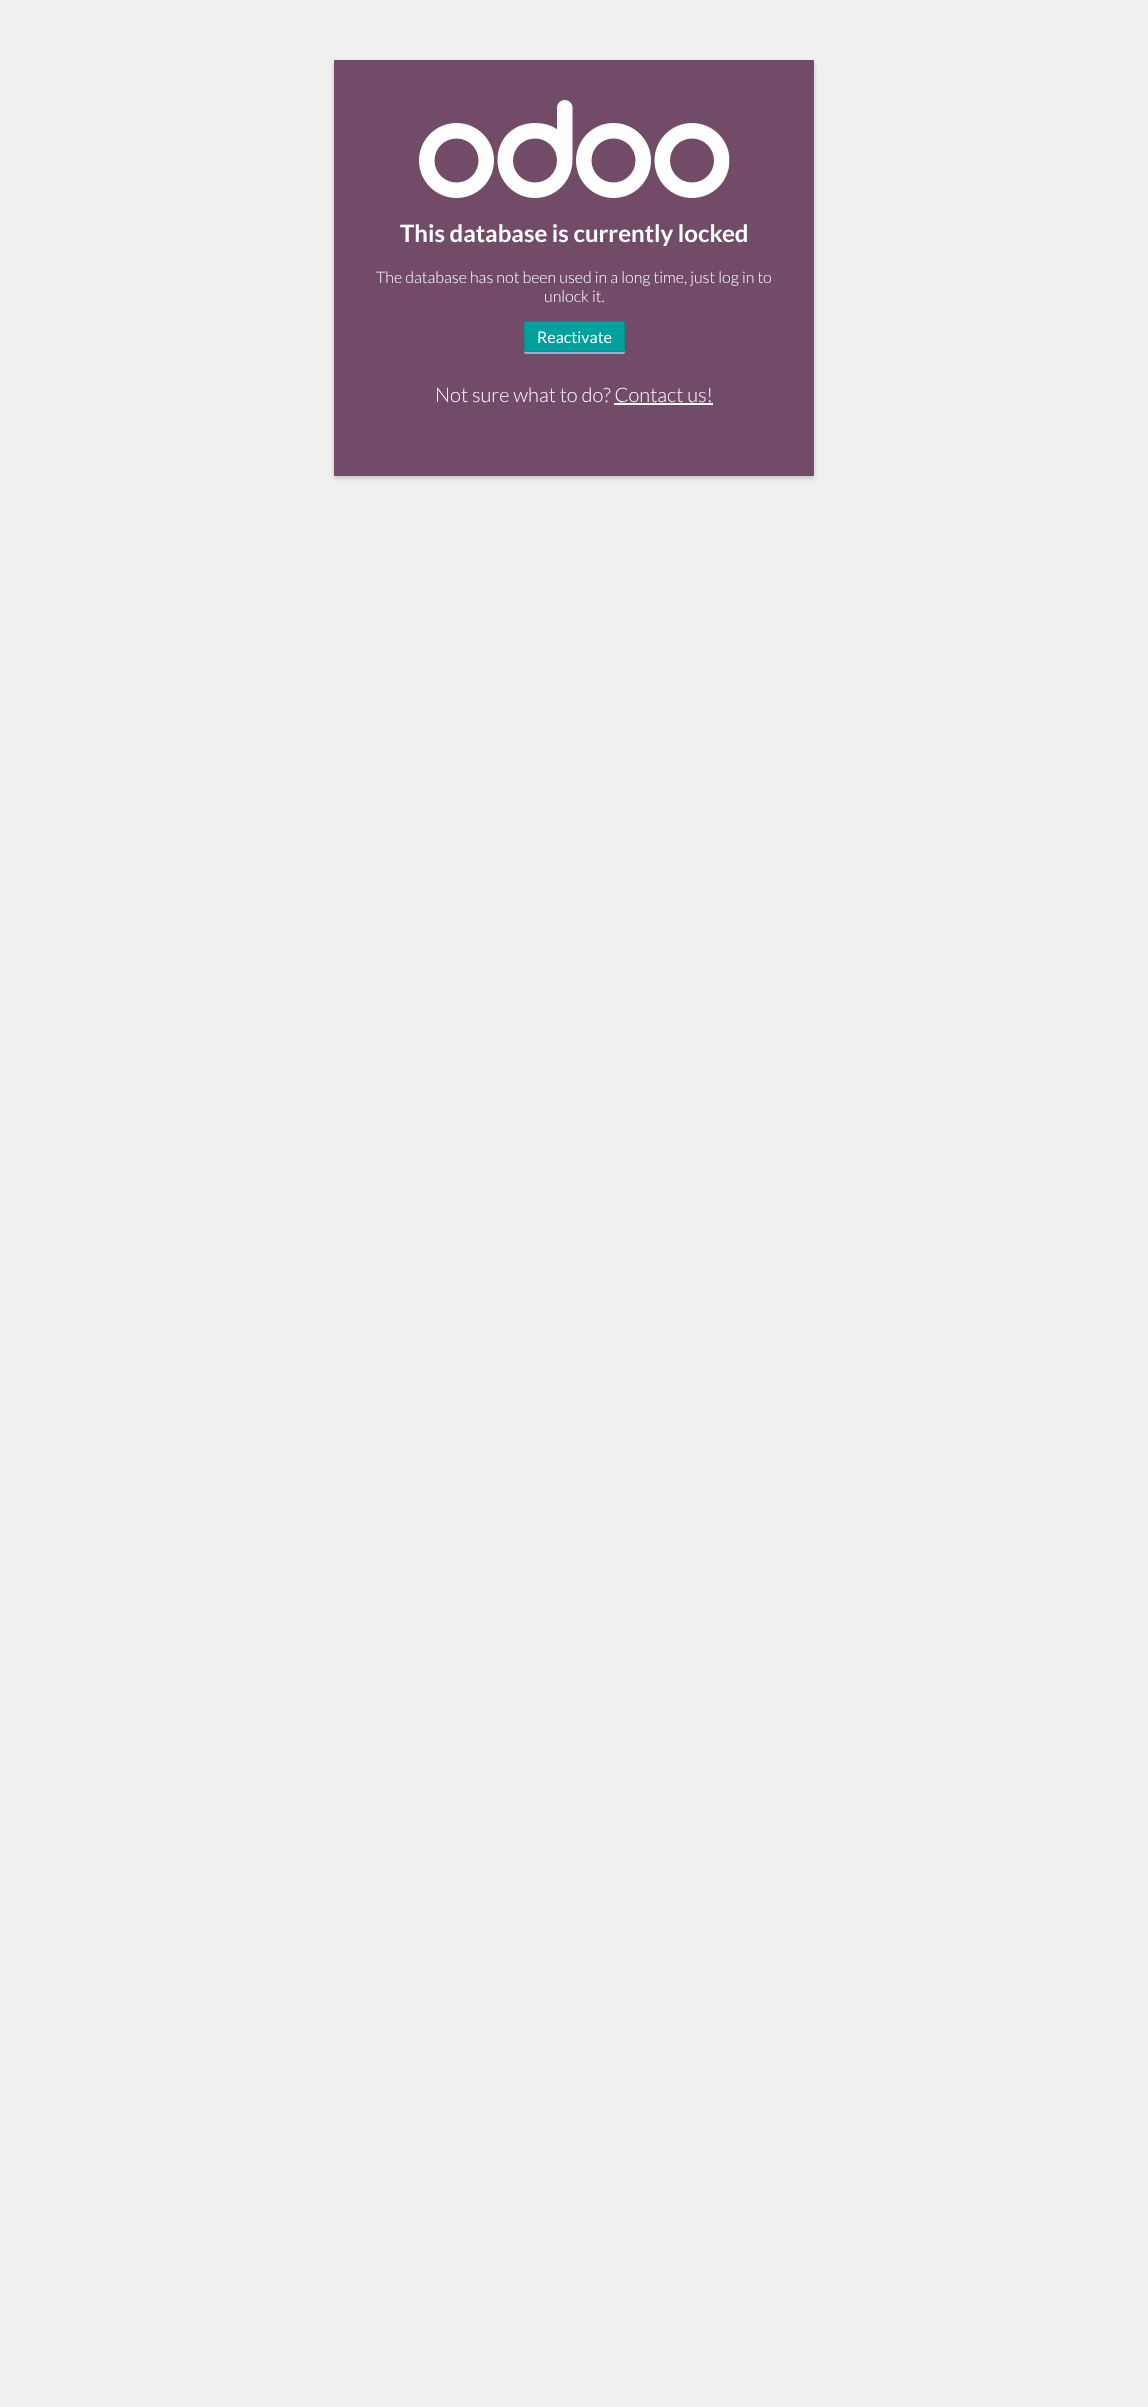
<svg xmlns="http://www.w3.org/2000/svg" width="1148" height="2407">
	<rect width="100%" height="100%" fill="#F0F0F0" />
	<rect x="334" y="62" width="480" height="416" rx="1" fill="#000000" fill-opacity="0.2" filter="blur(2px)" />
	<rect x="334" y="60" width="480" height="416" rx="1" fill="#714B67" />
	<image x="419" y="100" width="311" height="98" href="assets/img1.png" />
	<text x="400" y="242" font-family="Lato" font-size="24" font-weight="700" fill="#FFFFFF">This database is currently locked</text>
	<g font-family="Lato" font-size="16" font-weight="300" fill="#FFFFFF">
		<text x="376" y="283">The database has not been used in a long time, just log in to</text>
		<text x="544" y="302">unlock it.</text>
	</g>
	<path d="M524 350V352C524 353 525 354 526 354H623C624 354 625 353 625 352V350C625 351 624 352 623 352H526C525 352 524 351 524 350Z" fill="#AFA8CC" />
	<rect x="524" y="321" width="101" height="31" rx="2" fill="#00A09D" />
	<rect x="524.5" y="321.5" width="100" height="30" rx="1.5" fill="none" stroke="#000000" stroke-opacity="0.09" />
	<text x="537" y="343" font-family="Lato" font-size="16" fill="#FFFFFF">Reactivate</text>
	<text x="435" y="402" font-family="Lato" font-size="20" font-weight="300" fill="#FFFFFF">Not sure what to do? Contact us!</text>
	<rect x="614" y="403" width="99" height="2" fill="#FFFFFF" />
</svg>
